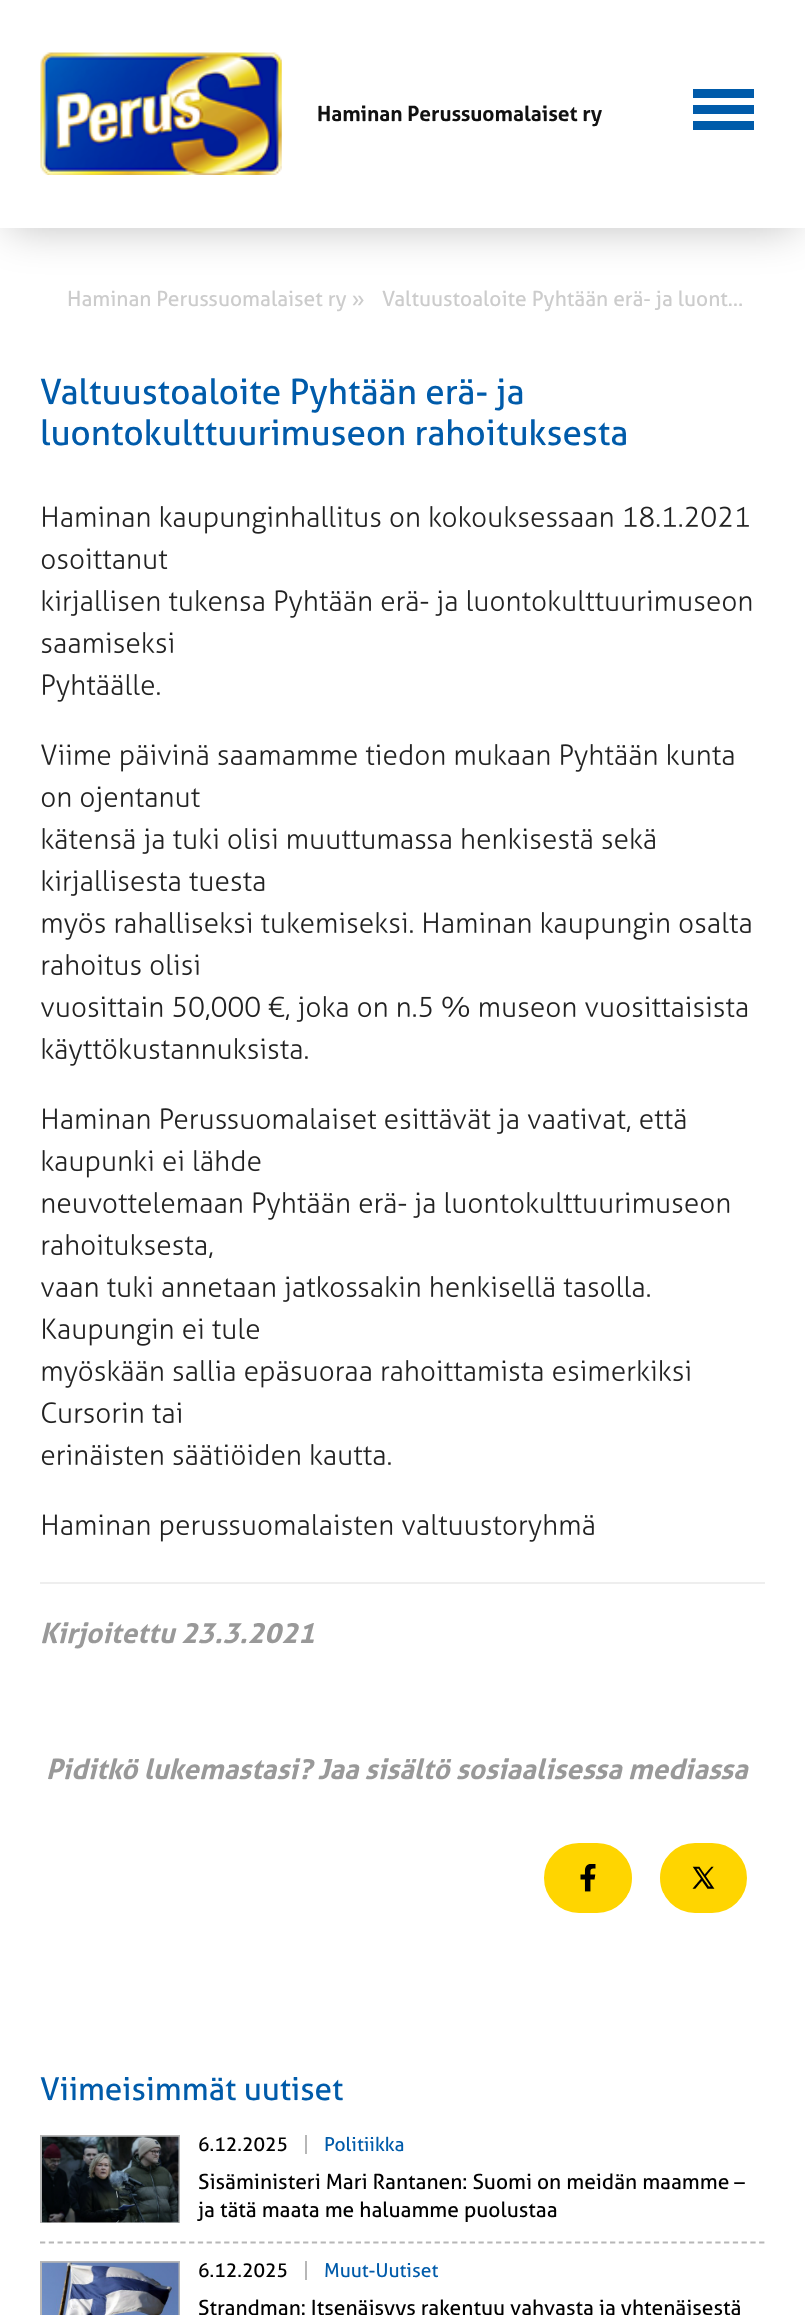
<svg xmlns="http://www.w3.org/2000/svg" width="805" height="2315">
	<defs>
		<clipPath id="clip1"><rect x="40" y="2135" width="140" height="88" /></clipPath>
	</defs>
	<rect width="100%" height="100%" fill="#FFFFFF" />
	<rect x="9" y="18" width="787" height="210" fill="#000000" fill-opacity="0.25" filter="blur(22px)" />
	<rect x="0" y="0" width="805" height="228" fill="#FFFFFF" />
	<image x="40" y="52" width="242" height="123" href="assets/img1.png" />
	<text x="317" y="121" font-family="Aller" font-size="21" font-weight="700" fill="#111111">Haminan Perussuomalaiset ry</text>
	<rect x="693" y="105" width="61" height="9" fill="#005BAA" />
	<rect x="693" y="89" width="61" height="9" fill="#005BAA" />
	<rect x="693" y="121" width="61" height="9" fill="#005BAA" />
	<g font-family="Aller" font-size="21" fill="#CCCCCC">
		<text x="67" y="306">Haminan Perussuomalaiset ry »</text>
		<text x="382" y="306">Valtuustoaloite Pyhtään erä- ja luont…</text>
	</g>
	<g font-family="Aller" font-size="35" fill="#005BAA">
		<text x="40" y="404">Valtuustoaloite Pyhtään erä- ja</text>
		<text x="40" y="445">luontokulttuurimuseon rahoituksesta</text>
	</g>
	<image x="43" y="506" width="706" height="28" href="assets/img2.png" />
	<image x="41" y="548" width="127" height="22" href="assets/img3.png" />
	<image x="42" y="590" width="710" height="28" href="assets/img4.png" />
	<image x="41" y="632" width="132" height="22" href="assets/img5.png" />
	<image x="43" y="674" width="117" height="28" href="assets/img6.png" />
	<image x="41" y="744" width="693" height="28" href="assets/img7.png" />
	<image x="41" y="786" width="159" height="26" href="assets/img8.png" />
	<image x="42" y="828" width="613" height="26" href="assets/img9.png" />
	<image x="42" y="870" width="223" height="26" href="assets/img10.png" />
	<image x="42" y="912" width="709" height="28" href="assets/img11.png" />
	<image x="42" y="954" width="157" height="22" href="assets/img12.png" />
	<image x="41" y="996" width="707" height="26" href="assets/img13.png" />
	<image x="42" y="1038" width="266" height="28" href="assets/img14.png" />
	<image x="43" y="1108" width="643" height="26" href="assets/img15.png" />
	<image x="42" y="1150" width="219" height="28" href="assets/img16.png" />
	<image x="42" y="1192" width="688" height="28" href="assets/img17.png" />
	<image x="42" y="1234" width="171" height="24" href="assets/img18.png" />
	<image x="41" y="1276" width="609" height="26" href="assets/img19.png" />
	<image x="43" y="1318" width="216" height="28" href="assets/img20.png" />
	<image x="42" y="1360" width="648" height="28" href="assets/img21.png" />
	<image x="42" y="1402" width="139" height="22" href="assets/img22.png" />
	<image x="41" y="1444" width="350" height="22" href="assets/img23.png" />
	<image x="43" y="1514" width="551" height="28" href="assets/img24.png" />
	<rect x="40" y="1582" width="725" height="2" fill="#EEEEEE" />
	<g font-family="Aller" font-size="28" font-weight="700" font-style="italic" fill="#999999">
		<text x="40" y="1643">Kirjoitettu 23.3.2021</text>
		<text x="46" y="1779">Piditkö lukemastasi? Jaa sisältö sosiaalisessa mediassa</text>
	</g>
	<rect x="546" y="1845" width="84" height="66" rx="33" fill="#FFD500" stroke="#FFD500" stroke-width="4" />
	<image x="580" y="1864" width="16" height="28" href="assets/img25.png" />
	<rect x="662" y="1845" width="83" height="66" rx="33" fill="#FFD500" stroke="#FFD500" stroke-width="4" />
	<image x="692" y="1866" width="23" height="23" href="assets/img26.png" />
	<text x="40" y="2100" font-family="Aller" font-size="31.5" fill="#005BAA">Viimeisimmät uutiset</text>
	<path d="M40 2242.5H765" fill="none" stroke="#B7B7B7" stroke-width="1.8" stroke-dasharray="5.25 3.52" />
	<g clip-path="url(#clip1)">
		<rect x="41" y="2136" width="138" height="103" fill="none" stroke="#B7B7B7" stroke-width="2" />
	</g>
	<image x="42" y="2136" width="137" height="87" href="assets/img27.png" />
	<text x="198" y="2151" font-family="Aller" font-size="19.25" fill="#000000">6.12.2025</text>
	<rect x="305" y="2135" width="2" height="19" fill="#B7B7B7" />
	<text x="324" y="2151" font-family="Aller" font-size="19.25" fill="#005BAA">Politiikka</text>
	<g font-family="Aller" font-size="21" fill="#000000">
		<text x="198" y="2189">Sisäministeri Mari Rantanen: Suomi on meidän maamme –</text>
		<text x="198" y="2217">ja tätä maata me haluamme puolustaa</text>
	</g>
	<rect x="41" y="2262" width="138" height="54" fill="none" stroke="#B7B7B7" stroke-width="2" />
	<image x="42" y="2262" width="137" height="53" href="assets/img28.png" />
	<text x="198" y="2277" font-family="Aller" font-size="19.25" fill="#000000">6.12.2025</text>
	<rect x="305" y="2261" width="2" height="19" fill="#B7B7B7" />
	<text x="324" y="2277" font-family="Aller" font-size="19.25" fill="#005BAA">Muut-Uutiset</text>
	<text x="198" y="2315" font-family="Aller" font-size="21" fill="#000000">Strandman: Itsenäisyys rakentuu vahvasta ja yhtenäisestä</text>
</svg>
